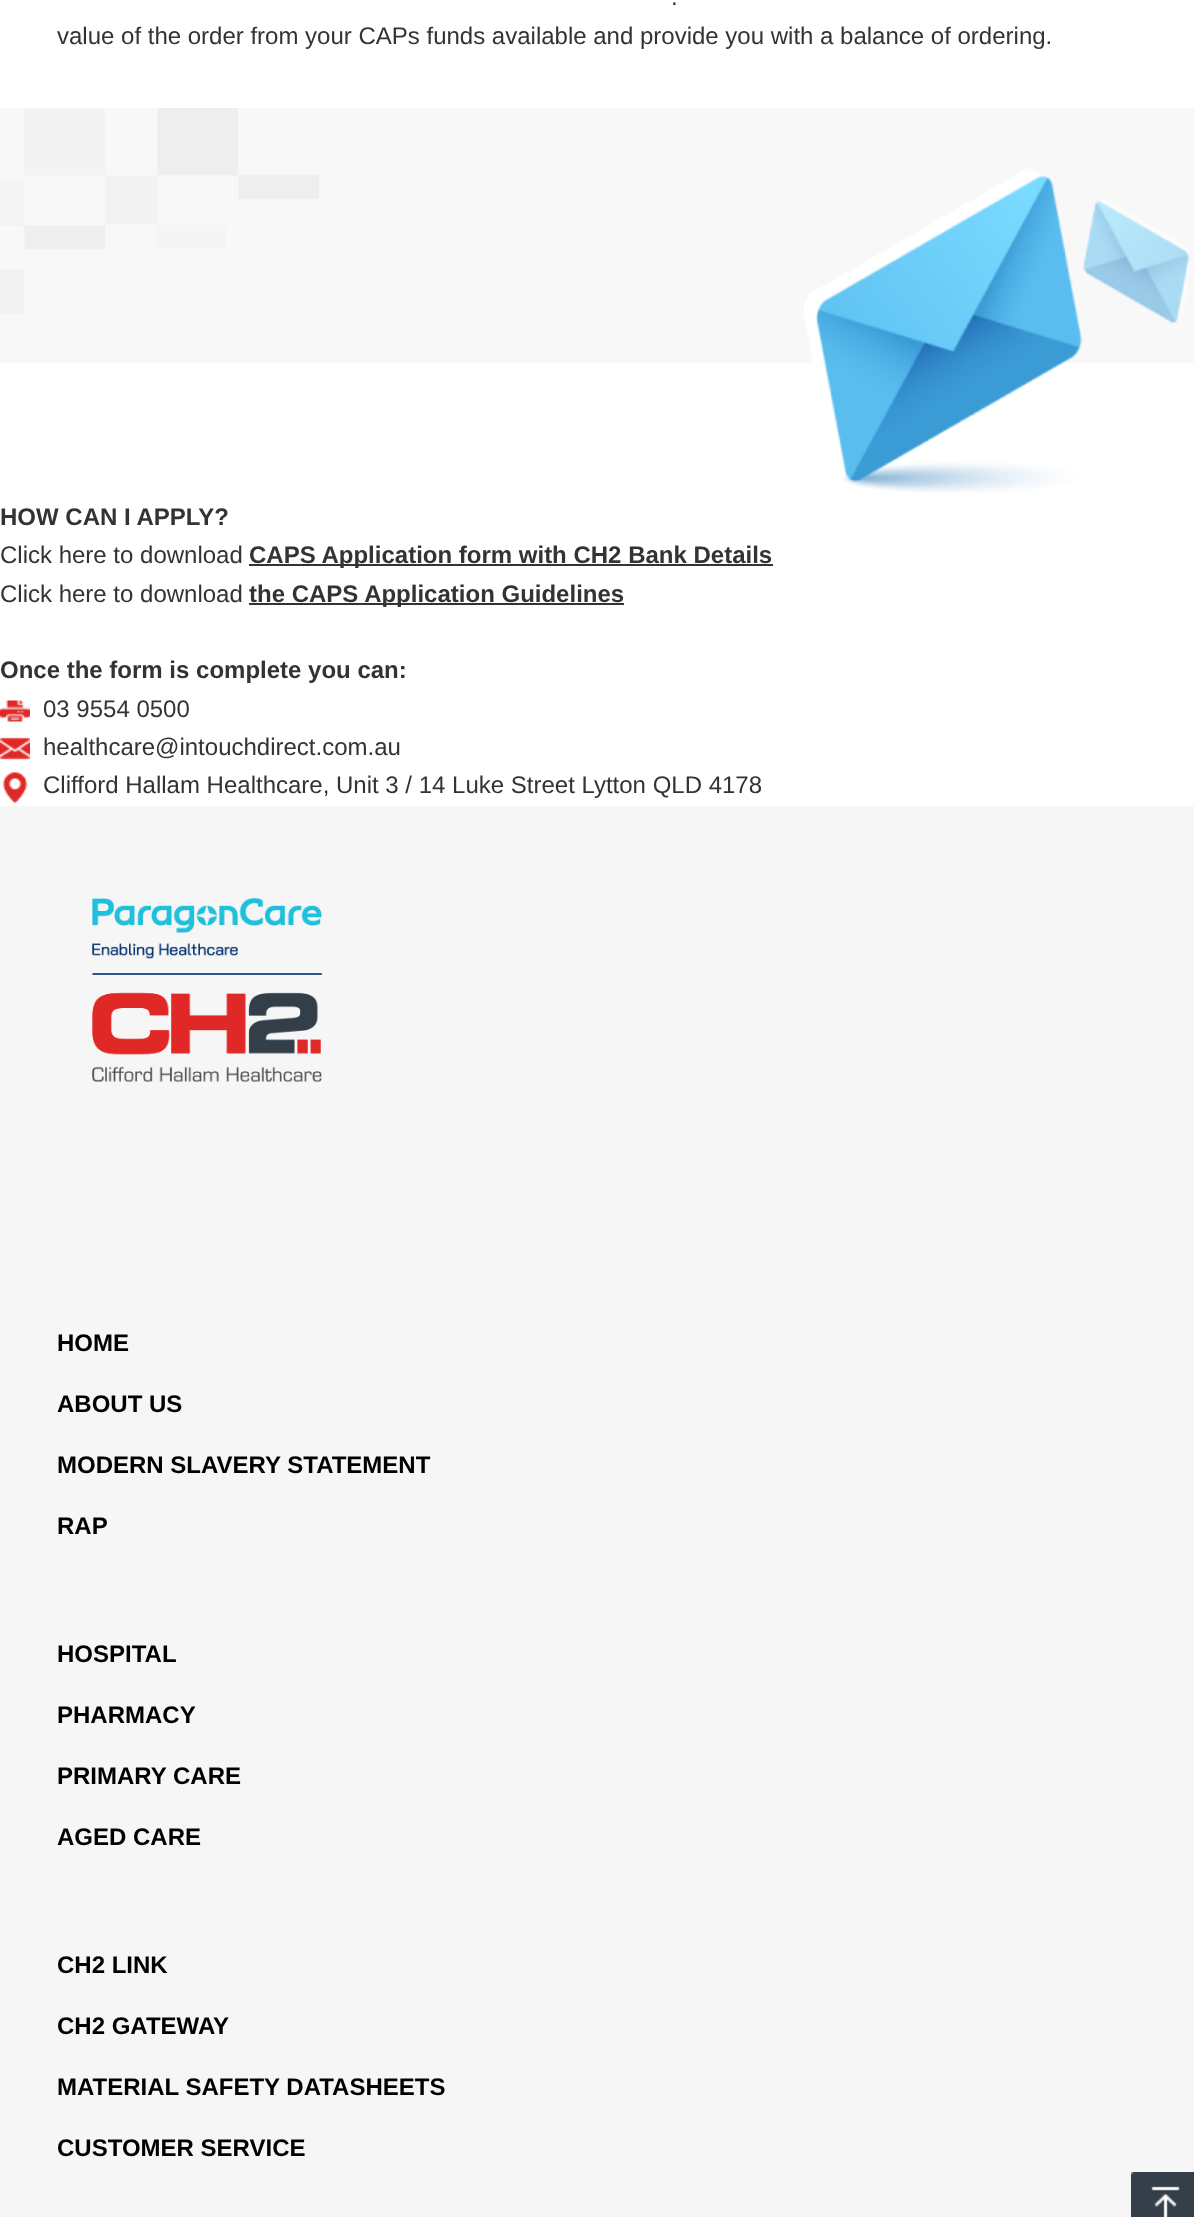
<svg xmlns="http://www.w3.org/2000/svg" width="1194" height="2217">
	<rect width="100%" height="100%" fill="#FFFFFF" />
	<g font-family="Liberation Sans" font-size="24" fill="#333333">
		<text x="671" y="5">.</text>
		<text x="57" y="44">value of the order from your CAPs funds available and provide you with a balance of ordering.</text>
	</g>
	<image x="0" y="108" width="1194" height="255" href="assets/img1.png" />
	<image x="804" y="168" width="386" height="325" href="assets/img2.png" />
	<text x="0" y="525" font-family="Liberation Sans" font-size="24" font-weight="700" fill="#333333">HOW CAN I APPLY?</text>
	<text x="0" y="563" font-family="Liberation Sans" font-size="24" fill="#333333">Click here to download</text>
	<rect x="249" y="564" width="524" height="2" fill="#333333" />
	<text x="249" y="563" font-family="Liberation Sans" font-size="24" font-weight="700" fill="#333333">CAPS Application form with CH2 Bank Details</text>
	<text x="0" y="602" font-family="Liberation Sans" font-size="24" fill="#333333">Click here to download</text>
	<rect x="249" y="603" width="375" height="2" fill="#333333" />
	<g font-family="Liberation Sans" font-size="24" font-weight="700" fill="#333333">
		<text x="249" y="602">the CAPS Application Guidelines</text>
		<text x="0" y="678">Once the form is complete you can:</text>
	</g>
	<image x="0" y="700" width="30" height="22" href="assets/img3.png" />
	<text x="43" y="717" font-family="Liberation Sans" font-size="24" fill="#333333">03 9554 0500</text>
	<image x="0" y="737" width="30" height="23" href="assets/img4.png" />
	<text x="43" y="755" font-family="Liberation Sans" font-size="24" fill="#333333">healthcare@intouchdirect.com.au</text>
	<image x="2" y="772" width="26" height="31" href="assets/img5.png" />
	<text x="43" y="793" font-family="Liberation Sans" font-size="24" fill="#333333">Clifford Hallam Healthcare, Unit 3 / 14 Luke Street Lytton QLD 4178</text>
	<rect x="0" y="806" width="1194" height="1411" fill="#F6F6F6" />
	<image x="92" y="897" width="231" height="185" href="assets/img6.png" />
	<g font-family="Liberation Sans" font-size="24" font-weight="700" fill="#000000">
		<text x="57" y="1351">HOME</text>
		<text x="57" y="1412">ABOUT US</text>
		<text x="57" y="1473">MODERN SLAVERY STATEMENT</text>
		<text x="57" y="1534">RAP</text>
		<text x="57" y="1662">HOSPITAL</text>
		<text x="57" y="1723">PHARMACY</text>
		<text x="57" y="1784">PRIMARY CARE</text>
		<text x="57" y="1845">AGED CARE</text>
		<text x="57" y="1973">CH2 LINK</text>
		<text x="57" y="2034">CH2 GATEWAY</text>
		<text x="57" y="2095">MATERIAL SAFETY DATASHEETS</text>
		<text x="57" y="2156">CUSTOMER SERVICE</text>
	</g>
	<image x="1131" y="2172" width="63" height="45" href="assets/img7.png" />
</svg>
